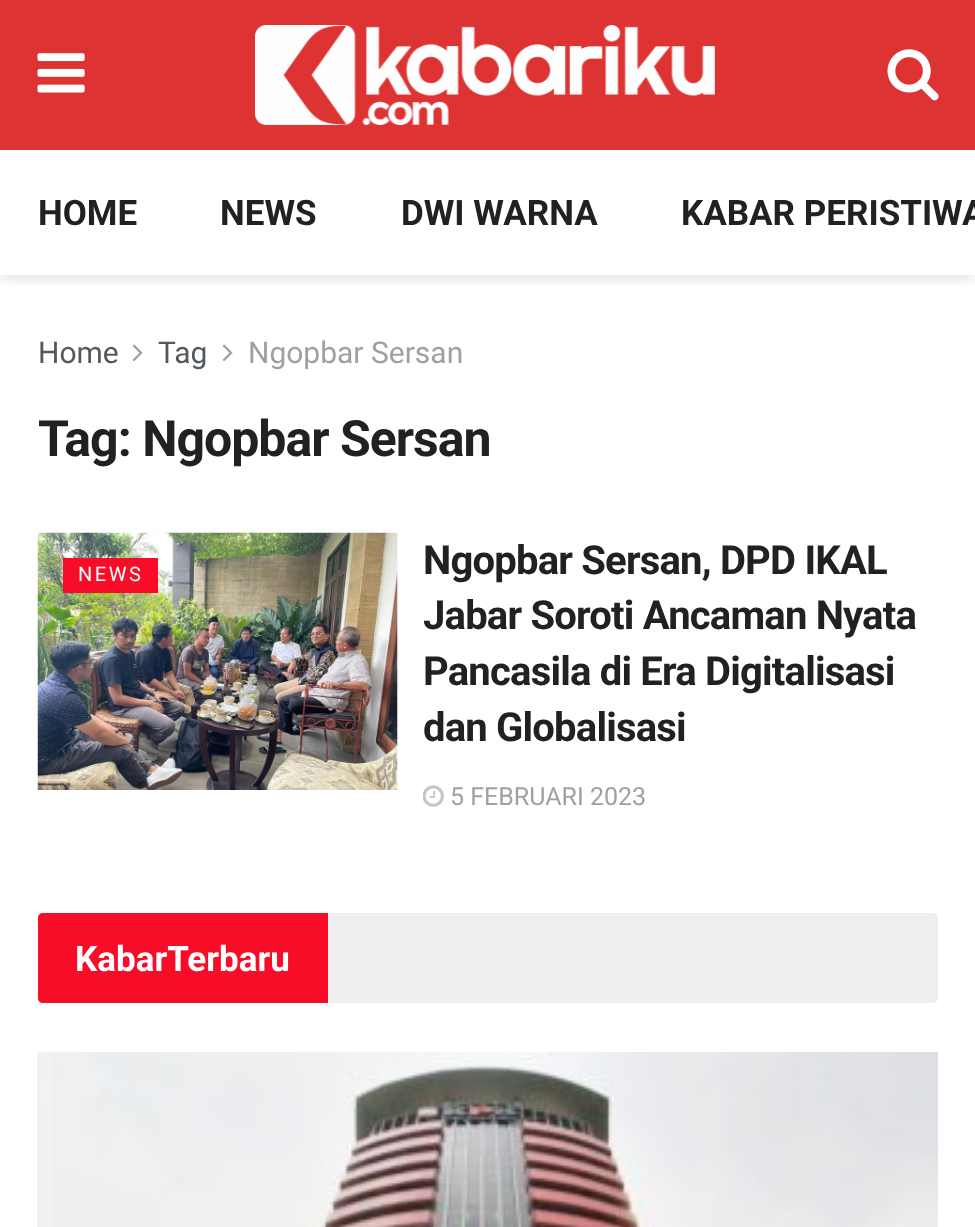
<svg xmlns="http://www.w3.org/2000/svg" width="975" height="1227">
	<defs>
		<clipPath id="clip1"><rect x="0" y="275" width="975" height="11" /></clipPath>
	</defs>
	<rect width="100%" height="100%" fill="#FFFFFF" />
	<g clip-path="url(#clip1)">
		<rect x="0" y="5" width="975" height="275" fill="#000000" fill-opacity="0.1" filter="blur(7.5px)" />
	</g>
	<rect x="0" y="0" width="975" height="150" fill="#DD3333" />
	<image x="37" y="53" width="48" height="40" href="assets/img1.png" />
	<image x="255" y="25" width="460" height="100" href="assets/img2.png" />
	<image x="887" y="49" width="52" height="52" href="assets/img3.png" />
	<g font-family="Roboto" font-size="35" font-weight="700" fill="#212121">
		<text x="38" y="225">HOME</text>
		<text x="220" y="225">NEWS</text>
		<text x="401" y="225">DWI WARNA</text>
		<text x="681" y="225">KABAR PERISTIWA</text>
	</g>
	<text x="38" y="363" font-family="Roboto" font-size="30" fill="#53585C">Home</text>
	<image x="132" y="344" width="11" height="18" href="assets/img4.png" />
	<text x="158" y="363" font-family="Roboto" font-size="30" fill="#53585C">Tag</text>
	<image x="222" y="344" width="11" height="18" href="assets/img4.png" />
	<text x="248" y="363" font-family="Roboto" font-size="30" fill="#A0A0A0">Ngopbar Sersan</text>
	<text x="38" y="456" font-family="Roboto" font-size="50" font-weight="700" letter-spacing="-1" fill="#212121">Tag: Ngopbar Sersan</text>
	<rect x="397" y="533" width="1" height="257" fill="#F7F7F7" />
	<image x="37" y="532" width="361" height="258" href="assets/img5.png" />
	<rect x="63" y="558" width="95" height="35" fill="#F70D28" />
	<text x="78" y="581" font-family="Roboto" font-size="20" letter-spacing="2.5" fill="#FFFFFF">NEWS</text>
	<g font-family="Roboto" font-size="40" font-weight="700" letter-spacing="-0.8" fill="#212121">
		<text x="423" y="574">Ngopbar Sersan, DPD IKAL</text>
		<text x="423" y="629">Jabar Soroti Ancaman Nyata</text>
		<text x="423" y="685">Pancasila di Era Digitalisasi</text>
		<text x="423" y="741">dan Globalisasi</text>
	</g>
	<image x="423" y="785" width="21" height="22" href="assets/img6.png" />
	<text x="450" y="805" font-family="Roboto" font-size="25" fill="#A0A0A0">5 FEBRUARI 2023</text>
	<rect x="38" y="913" width="900" height="90" rx="5" fill="#EEEEEE" />
	<path d="M43 913H328V1003H43C40 1003 38 1001 38 998V918C38 915 40 913 43 913Z" fill="#F70D28" />
	<text x="75" y="971" font-family="Roboto" font-size="35" font-weight="700" fill="#FFFFFF">KabarTerbaru</text>
	<image x="37" y="1052" width="14" height="175" href="assets/img7.png" />
	<image x="51" y="1052" width="887" height="175" href="assets/img8.png" />
</svg>
